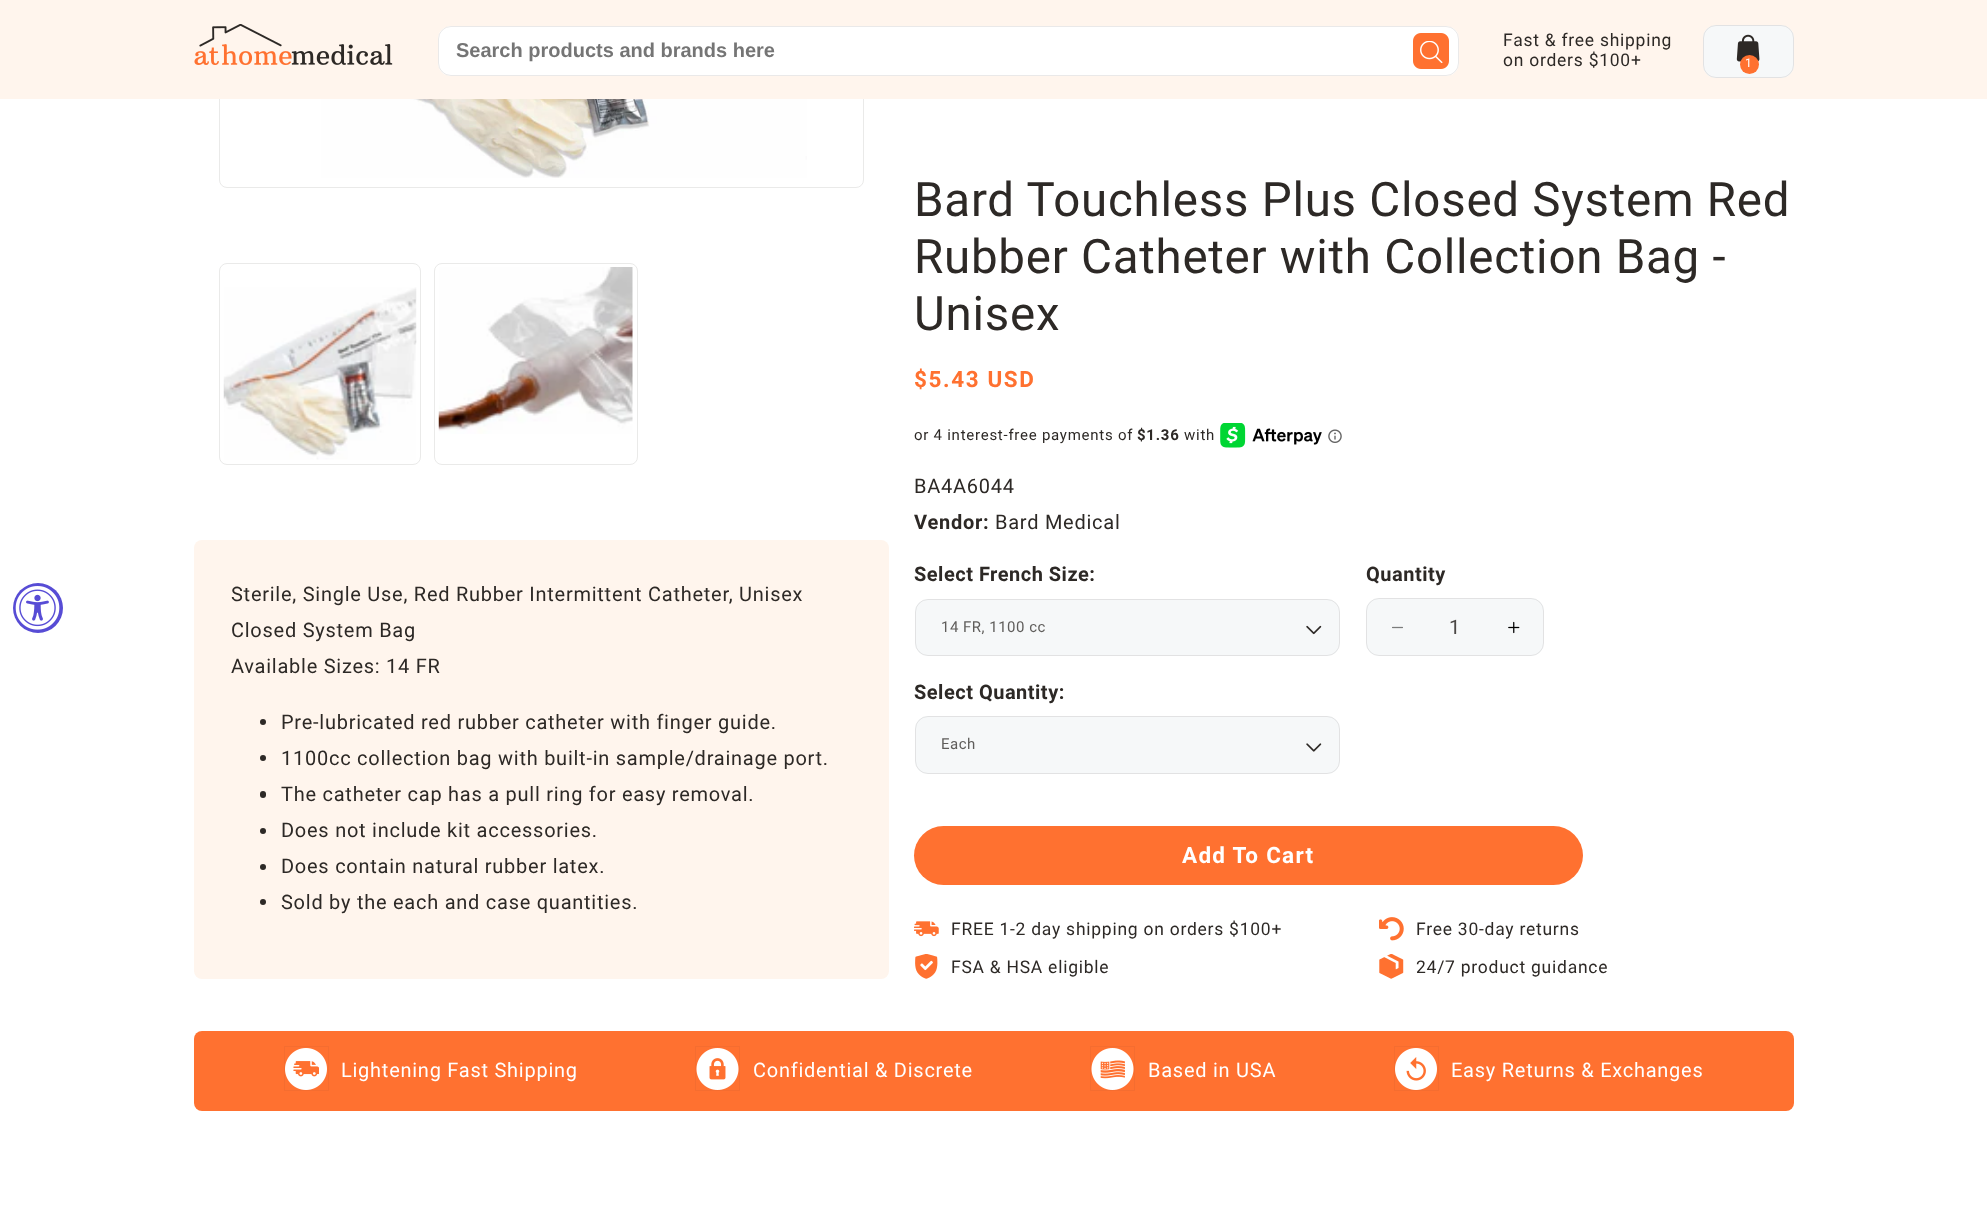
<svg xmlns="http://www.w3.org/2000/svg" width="1987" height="1214">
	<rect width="100%" height="100%" fill="#FFFFFF" />
	<rect x="219.5" y="-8.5" width="644" height="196" rx="7.5" fill="none" stroke="#EAEAE9" />
	<rect x="0" y="0" width="1987" height="99" fill="#FFF5ED" />
	<image x="194" y="24" width="199" height="41" href="assets/img1.png" />
	<rect x="438" y="26" width="1021" height="50" rx="13" fill="#FFFFFF" />
	<rect x="438.5" y="26.5" width="1020" height="49" rx="12.5" fill="none" stroke="#2D2926" stroke-opacity="0.1" />
	<text x="456" y="57" font-family="Liberation Sans" font-size="20" font-weight="700" fill="#757575">Search products and brands here</text>
	<image x="1413" y="33" width="36" height="36" href="assets/img2.png" />
	<g font-family="Roboto" font-size="17.5" letter-spacing="0.75" fill="#2D2926">
		<text x="1503" y="46">Fast &amp; free shipping</text>
		<text x="1503" y="66">on orders $100+</text>
	</g>
	<rect x="1703" y="25" width="91" height="53" rx="13" fill="#F6F8F9" />
	<rect x="1703.5" y="25.5" width="90" height="52" rx="12.5" fill="none" stroke="#2D2926" stroke-opacity="0.1" />
	<image x="1736" y="34" width="24" height="28" href="assets/img3.png" />
	<circle cx="1749.5" cy="64.5" r="9.5" fill="#FF7130" />
	<text x="1745" y="67" font-family="Roboto" font-size="12" letter-spacing="0.75" fill="#FFFFFF">1</text>
	<circle cx="38" cy="608" r="25" fill="#574CD5" />
	<image x="15" y="586" width="45" height="44" href="assets/img4.png" />
	<image x="321" y="99" width="486" height="79" href="assets/img5.png" />
	<rect x="219.5" y="263.5" width="201" height="201" rx="7.5" fill="none" stroke="#EAEAE9" />
	<image x="223" y="287" width="194" height="173" href="assets/img6.png" />
	<rect x="434.5" y="263.5" width="203" height="201" rx="7.5" fill="none" stroke="#EAEAE9" />
	<image x="438" y="267" width="195" height="167" href="assets/img7.png" />
	<rect x="194" y="540" width="695" height="439" rx="8" fill="#FFF5ED" />
	<g font-family="Roboto" font-size="20" letter-spacing="0.75" fill="#2D2926">
		<text x="231" y="601">Sterile, Single Use, Red Rubber Intermittent Catheter, Unisex</text>
		<text x="231" y="637">Closed System Bag</text>
		<text x="231" y="673">Available Sizes: 14 FR</text>
	</g>
	<circle cx="263" cy="722" r="3" fill="#2D2926" />
	<text x="281" y="729" font-family="Roboto" font-size="20" letter-spacing="0.75" fill="#2D2926">Pre-lubricated red rubber catheter with finger guide.</text>
	<circle cx="263" cy="758" r="3" fill="#2D2926" />
	<text x="281" y="765" font-family="Roboto" font-size="20" letter-spacing="0.75" fill="#2D2926">1100cc collection bag with built-in sample/drainage port.</text>
	<rect x="260" y="791" width="6" height="7" rx="3" fill="#2D2926" />
	<text x="281" y="801" font-family="Roboto" font-size="20" letter-spacing="0.75" fill="#2D2926">The catheter cap has a pull ring for easy removal.</text>
	<circle cx="263" cy="831" r="3" fill="#2D2926" />
	<text x="281" y="837" font-family="Roboto" font-size="20" letter-spacing="0.75" fill="#2D2926">Does not include kit accessories.</text>
	<circle cx="263" cy="867" r="3" fill="#2D2926" />
	<text x="281" y="873" font-family="Roboto" font-size="20" letter-spacing="0.75" fill="#2D2926">Does contain natural rubber latex.</text>
	<circle cx="263" cy="902" r="3" fill="#2D2926" />
	<text x="281" y="909" font-family="Roboto" font-size="20" letter-spacing="0.75" fill="#2D2926">Sold by the each and case quantities.</text>
	<g font-family="Roboto" font-size="47.5" letter-spacing="0.75" fill="#2D2926">
		<text x="914" y="216">Bard Touchless Plus Closed System Red</text>
		<text x="914" y="273">Rubber Catheter with Collection Bag -</text>
		<text x="914" y="330">Unisex</text>
	</g>
	<text x="914" y="387" font-family="Roboto" font-size="22.5" font-weight="700" letter-spacing="1.6" fill="#FF7130">$5.43 USD</text>
	<text x="914" y="440" font-family="Roboto" font-size="15" letter-spacing="0.75" fill="#2D2926">or 4 interest-free payments of</text>
	<text x="1137" y="440" font-family="Roboto" font-size="15" font-weight="700" letter-spacing="0.75" fill="#2D2926">$1.36</text>
	<text x="1184" y="440" font-family="Roboto" font-size="15" letter-spacing="0.75" fill="#2D2926">with</text>
	<image x="1220" y="423" width="102" height="25" href="assets/img8.png" />
	<image x="1328" y="429" width="14" height="14" href="assets/img9.png" />
	<text x="914" y="493" font-family="Roboto" font-size="20" letter-spacing="0.75" fill="#2D2926">BA4A6044</text>
	<text x="914" y="529" font-family="Roboto" font-size="20" font-weight="700" letter-spacing="0.75" fill="#2D2926">Vendor:</text>
	<text x="995" y="529" font-family="Roboto" font-size="20" letter-spacing="0.75" fill="#2D2926">Bard Medical</text>
	<text x="914" y="581" font-family="Roboto" font-size="20" font-weight="700" letter-spacing="0.5" fill="#2D2926">Select French Size:</text>
	<rect x="915" y="599" width="425" height="57" rx="13" fill="#F6F8F9" />
	<rect x="915.5" y="599.5" width="424" height="56" rx="12.5" fill="none" stroke="#2D2926" stroke-opacity="0.1" />
	<text x="941" y="632" font-family="Roboto" font-size="15" letter-spacing="0.5" fill="#5F5D5B">14 FR, 1100 cc</text>
	<image x="1306" y="625" width="16" height="10" href="assets/img10.png" />
	<text x="914" y="699" font-family="Roboto" font-size="20" font-weight="700" letter-spacing="0.5" fill="#2D2926">Select Quantity:</text>
	<rect x="915" y="716" width="425" height="58" rx="13" fill="#F6F8F9" />
	<rect x="915.5" y="716.5" width="424" height="57" rx="12.5" fill="none" stroke="#2D2926" stroke-opacity="0.1" />
	<text x="941" y="749" font-family="Roboto" font-size="15" letter-spacing="0.5" fill="#5F5D5B">Each</text>
	<image x="1306" y="743" width="16" height="9" href="assets/img11.png" />
	<text x="1366" y="581" font-family="Roboto" font-size="20" font-weight="700" letter-spacing="0.5" fill="#2D2926">Quantity</text>
	<rect x="1366" y="598" width="178" height="58" rx="13" fill="#F6F8F9" />
	<rect x="1366.5" y="598.5" width="177" height="57" rx="12.5" fill="none" stroke="#2D2926" stroke-opacity="0.1" />
	<image x="1392" y="626" width="11" height="3" href="assets/img12.png" />
	<text x="1449" y="634" font-family="Roboto" font-size="20" fill="#4B4846">1</text>
	<image x="1508" y="621" width="12" height="13" href="assets/img13.png" />
	<rect x="914" y="826" width="669" height="59" rx="29.5" fill="#FF7130" />
	<text x="1182" y="863" font-family="Roboto" font-size="22.5" font-weight="700" letter-spacing="1.25" fill="#FFFFFF">Add To Cart</text>
	<image x="914" y="921" width="25" height="16" href="assets/img14.png" />
	<text x="951" y="935" font-family="Roboto" font-size="17.5" letter-spacing="0.75" fill="#2D2926">FREE 1-2 day shipping on orders $100+</text>
	<image x="1379" y="917" width="25" height="24" href="assets/img15.png" />
	<text x="1416" y="935" font-family="Roboto" font-size="17.5" letter-spacing="0.75" fill="#2D2926">Free 30-day returns</text>
	<image x="915" y="954" width="23" height="25" href="assets/img16.png" />
	<text x="951" y="973" font-family="Roboto" font-size="17.5" letter-spacing="0.75" fill="#2D2926">FSA &amp; HSA eligible</text>
	<image x="1379" y="954" width="25" height="25" href="assets/img17.png" />
	<text x="1416" y="973" font-family="Roboto" font-size="17.5" letter-spacing="0.75" fill="#2D2926">24/7 product guidance</text>
	<rect x="194" y="1031" width="1600" height="80" rx="8" fill="#FF7130" />
	<rect x="284.5" y="1046.5" width="44" height="44" fill="none" stroke="#F56D30" />
	<image x="285" y="1048" width="42" height="42" href="assets/img18.png" />
	<text x="341" y="1077" font-family="Roboto" font-size="20" letter-spacing="0.75" fill="#FFFFFF">Lightening Fast Shipping</text>
	<rect x="695.5" y="1046.5" width="44" height="44" fill="none" stroke="#F56D30" />
	<image x="696" y="1048" width="43" height="42" href="assets/img19.png" />
	<text x="753" y="1077" font-family="Roboto" font-size="20" letter-spacing="0.75" fill="#FFFFFF">Confidential &amp; Discrete</text>
	<rect x="1090.5" y="1046.5" width="44" height="44" fill="none" stroke="#F56D30" />
	<image x="1091" y="1048" width="43" height="42" href="assets/img20.png" />
	<text x="1148" y="1077" font-family="Roboto" font-size="20" letter-spacing="0.75" fill="#FFFFFF">Based in USA</text>
	<rect x="1394.5" y="1046.5" width="44" height="44" fill="none" stroke="#F56D30" />
	<image x="1395" y="1048" width="42" height="42" href="assets/img21.png" />
	<text x="1451" y="1077" font-family="Roboto" font-size="20" letter-spacing="0.75" fill="#FFFFFF">Easy Returns &amp; Exchanges</text>
</svg>
